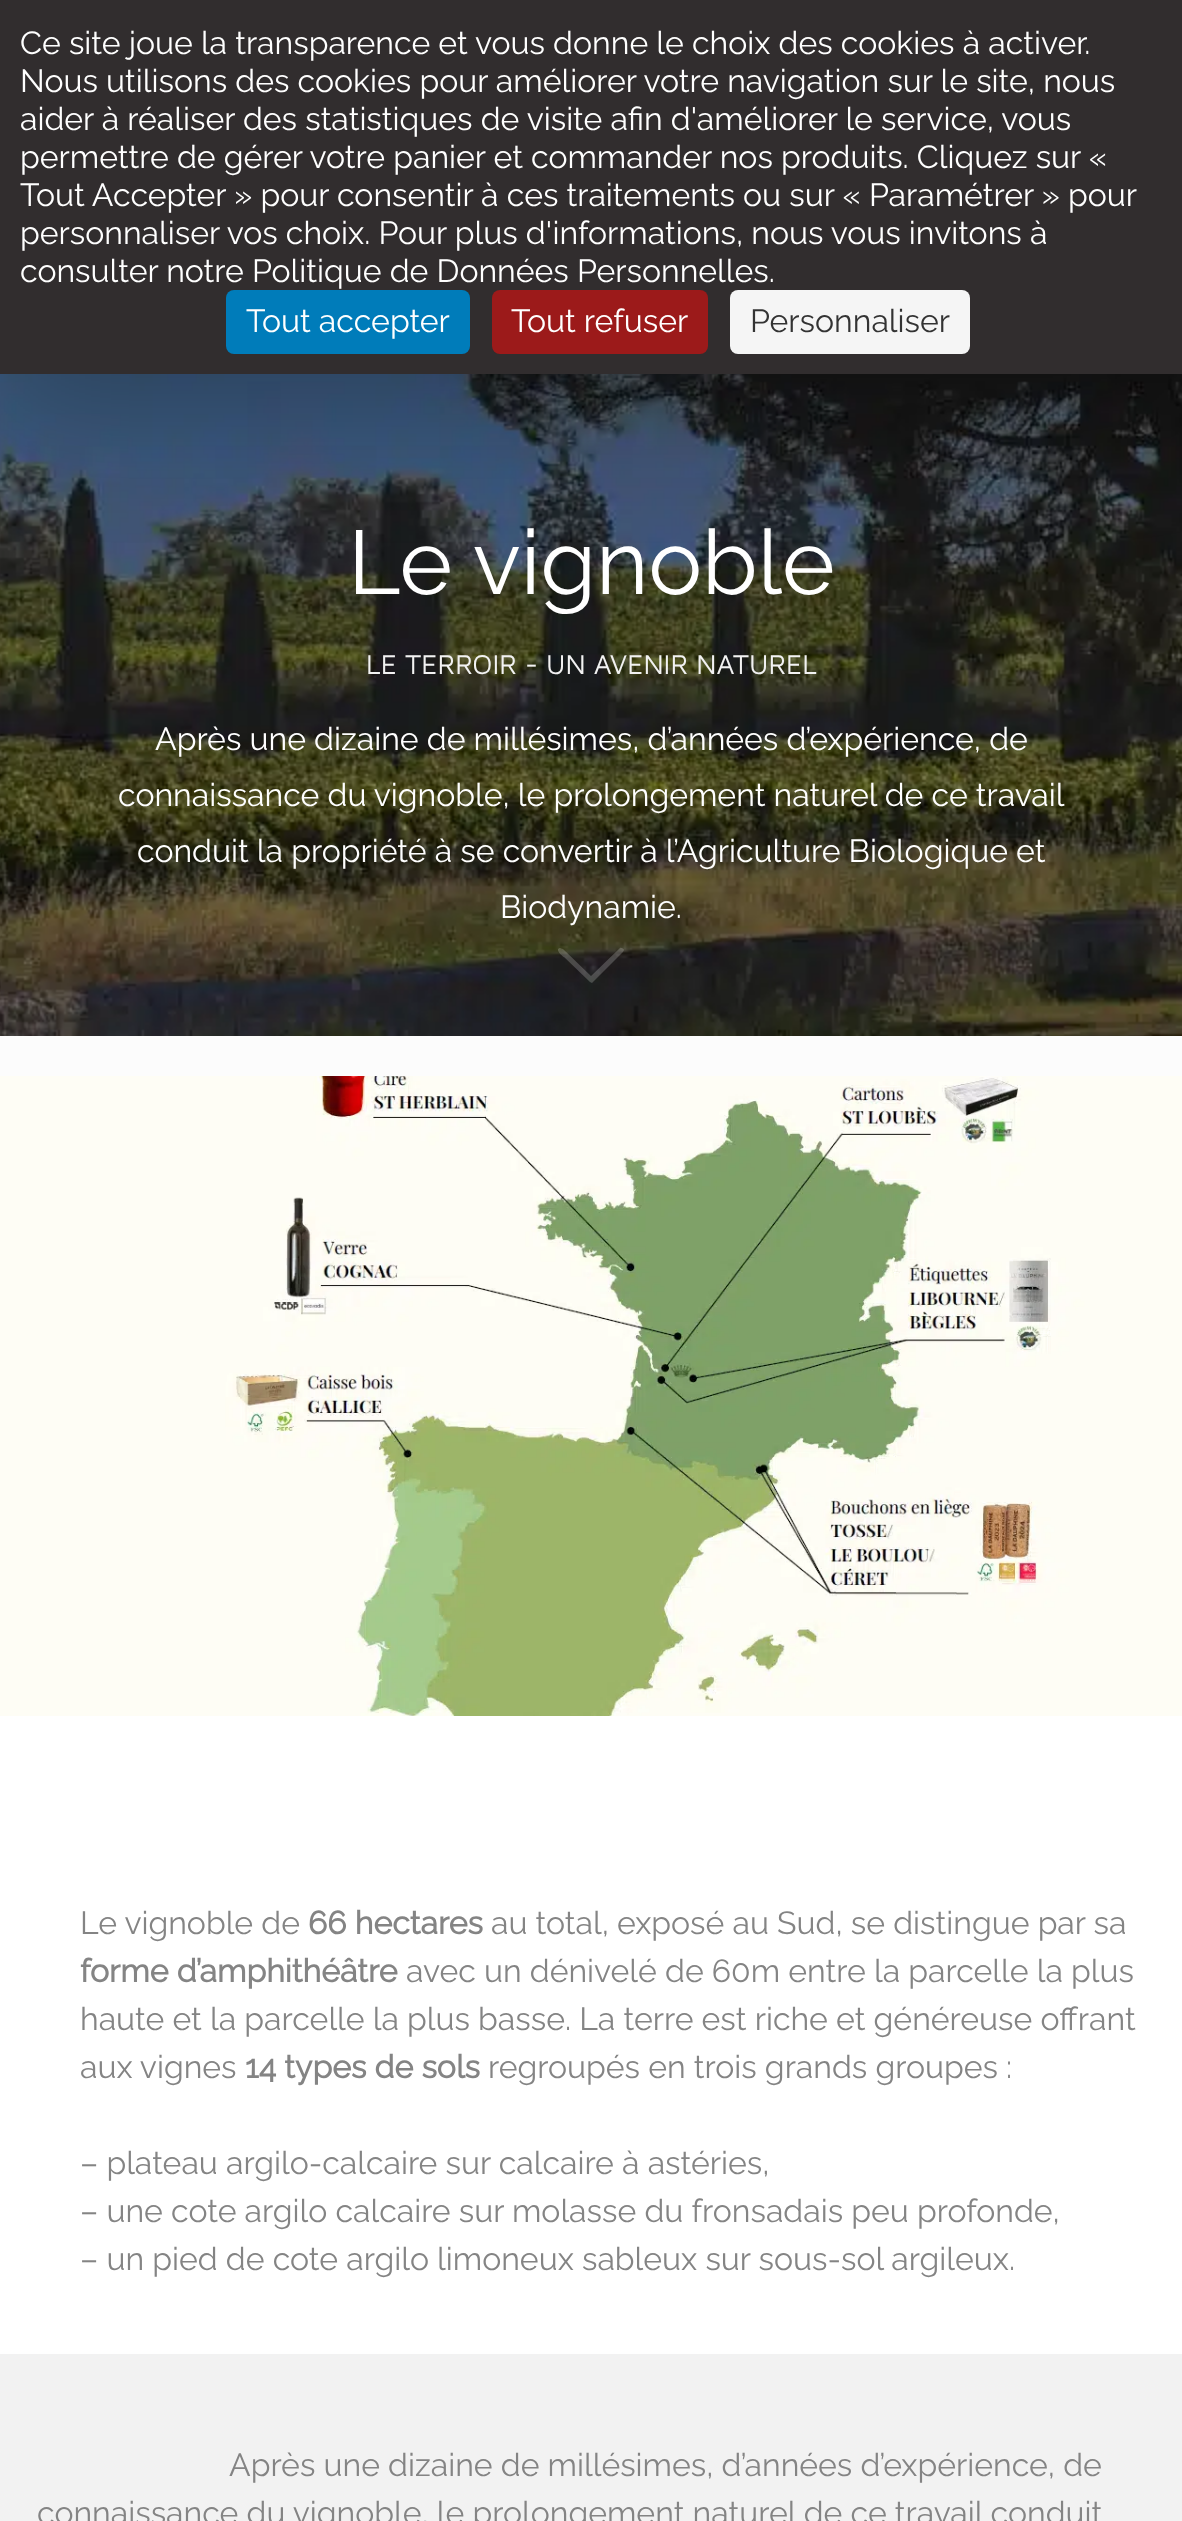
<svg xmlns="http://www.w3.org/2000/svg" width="1182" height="2521">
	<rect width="100%" height="100%" fill="#FCFCFC" />
	<image x="0" y="374" width="1182" height="662" href="assets/img1.png" />
	<rect x="0" y="40" width="1182" height="374" fill="#000000" fill-opacity="0.25" filter="blur(60px)" />
	<rect x="0" y="0" width="1182" height="374" fill="#312D2E" />
	<g font-family="Raleway" font-size="32" font-weight="100" fill="#FFFFFF">
		<text x="20" y="54">Ce site joue la transparence et vous donne le choix des cookies à activer.</text>
		<text x="20" y="92">Nous utilisons des cookies pour améliorer votre navigation sur le site, nous</text>
		<text x="20" y="130">aider à réaliser des statistiques de visite afin d'améliorer le service, vous</text>
		<text x="20" y="168">permettre de gérer votre panier et commander nos produits. Cliquez sur «</text>
		<text x="20" y="206">Tout Accepter » pour consentir à ces traitements ou sur « Paramétrer » pour</text>
		<text x="20" y="244">personnaliser vos choix. Pour plus d'informations, nous vous invitons à</text>
		<text x="20" y="282">consulter notre Politique de Données Personnelles.</text>
	</g>
	<rect x="226" y="290" width="244" height="64" rx="8" fill="#007CBA" />
	<text x="246" y="332" font-family="Raleway" font-size="32" font-weight="100" fill="#FFFFFF">Tout accepter</text>
	<rect x="492" y="290" width="216" height="64" rx="8" fill="#9C1A1A" />
	<text x="511" y="332" font-family="Raleway" font-size="32" font-weight="100" fill="#FFFFFF">Tout refuser</text>
	<rect x="730" y="290" width="240" height="64" rx="8" fill="#F5F5F5" />
	<text x="750" y="332" font-family="Raleway" font-size="32" font-weight="100" fill="#333333">Personnaliser</text>
	<text x="348" y="594" font-family="Raleway" font-size="90" font-weight="100" fill="#FFFFFF">Le vignoble</text>
	<text x="366" y="674" font-family="Maven Pro" font-size="28" fill="#F2F2F2">LE TERROIR - UN AVENIR NATUREL</text>
	<g font-family="Raleway" font-size="32" font-weight="100" fill="#FFFFFF">
		<text x="155" y="750">Après une dizaine de millésimes, d’années d’expérience, de</text>
		<text x="118" y="806">connaissance du vignoble, le prolongement naturel de ce travail</text>
		<text x="137" y="862">conduit la propriété à se convertir à l’Agriculture Biologique et</text>
		<text x="500" y="918">Biodynamie.</text>
	</g>
	<path d="M563 949L591 976L620 948C621 947 624 949 624 950L623 952L592 983L590 982L564 957C563 957 554 949 560 948Z" fill="#FFFFFF" fill-opacity="0.2" />
	<rect x="0" y="1716" width="1182" height="638" fill="#FFFFFF" />
	<image x="0" y="1076" width="1182" height="640" href="assets/img2.png" />
	<text x="80" y="1934" font-family="Raleway" font-size="32" font-weight="100" fill="#848484">Le vignoble de</text>
	<text x="308" y="1934" font-family="Raleway" font-size="32" font-weight="700" fill="#848484">66 hectares</text>
	<text x="491" y="1934" font-family="Raleway" font-size="32" font-weight="100" fill="#848484">au total, exposé au Sud, se distingue par sa</text>
	<text x="80" y="1982" font-family="Raleway" font-size="32" font-weight="700" fill="#848484">forme d’amphithéâtre</text>
	<g font-family="Raleway" font-size="32" font-weight="100" fill="#848484">
		<text x="406" y="1982">avec un dénivelé de 60m entre la parcelle la plus</text>
		<text x="80" y="2030">haute et la parcelle la plus basse. La terre est riche et généreuse offrant</text>
		<text x="80" y="2078">aux vignes</text>
	</g>
	<text x="245" y="2078" font-family="Raleway" font-size="32" font-weight="700" fill="#848484">14 types de sols</text>
	<g font-family="Raleway" font-size="32" font-weight="100" fill="#848484">
		<text x="488" y="2078">regroupés en trois grands groupes :</text>
		<text x="80" y="2174">– plateau argilo-calcaire sur calcaire à astéries,</text>
		<text x="80" y="2222">– une cote argilo calcaire sur molasse du fronsadais peu profonde,</text>
		<text x="80" y="2270">– un pied de cote argilo limoneux sableux sur sous-sol argileux.</text>
	</g>
	<rect x="0" y="2354" width="1182" height="167" fill="#F2F2F2" />
	<g font-family="Raleway" font-size="32" font-weight="100" fill="#848484">
		<text x="229" y="2476">Après une dizaine de millésimes, d’années d’expérience, de</text>
		<text x="37" y="2524">connaissance du vignoble, le prolongement naturel de ce travail conduit</text>
	</g>
</svg>
